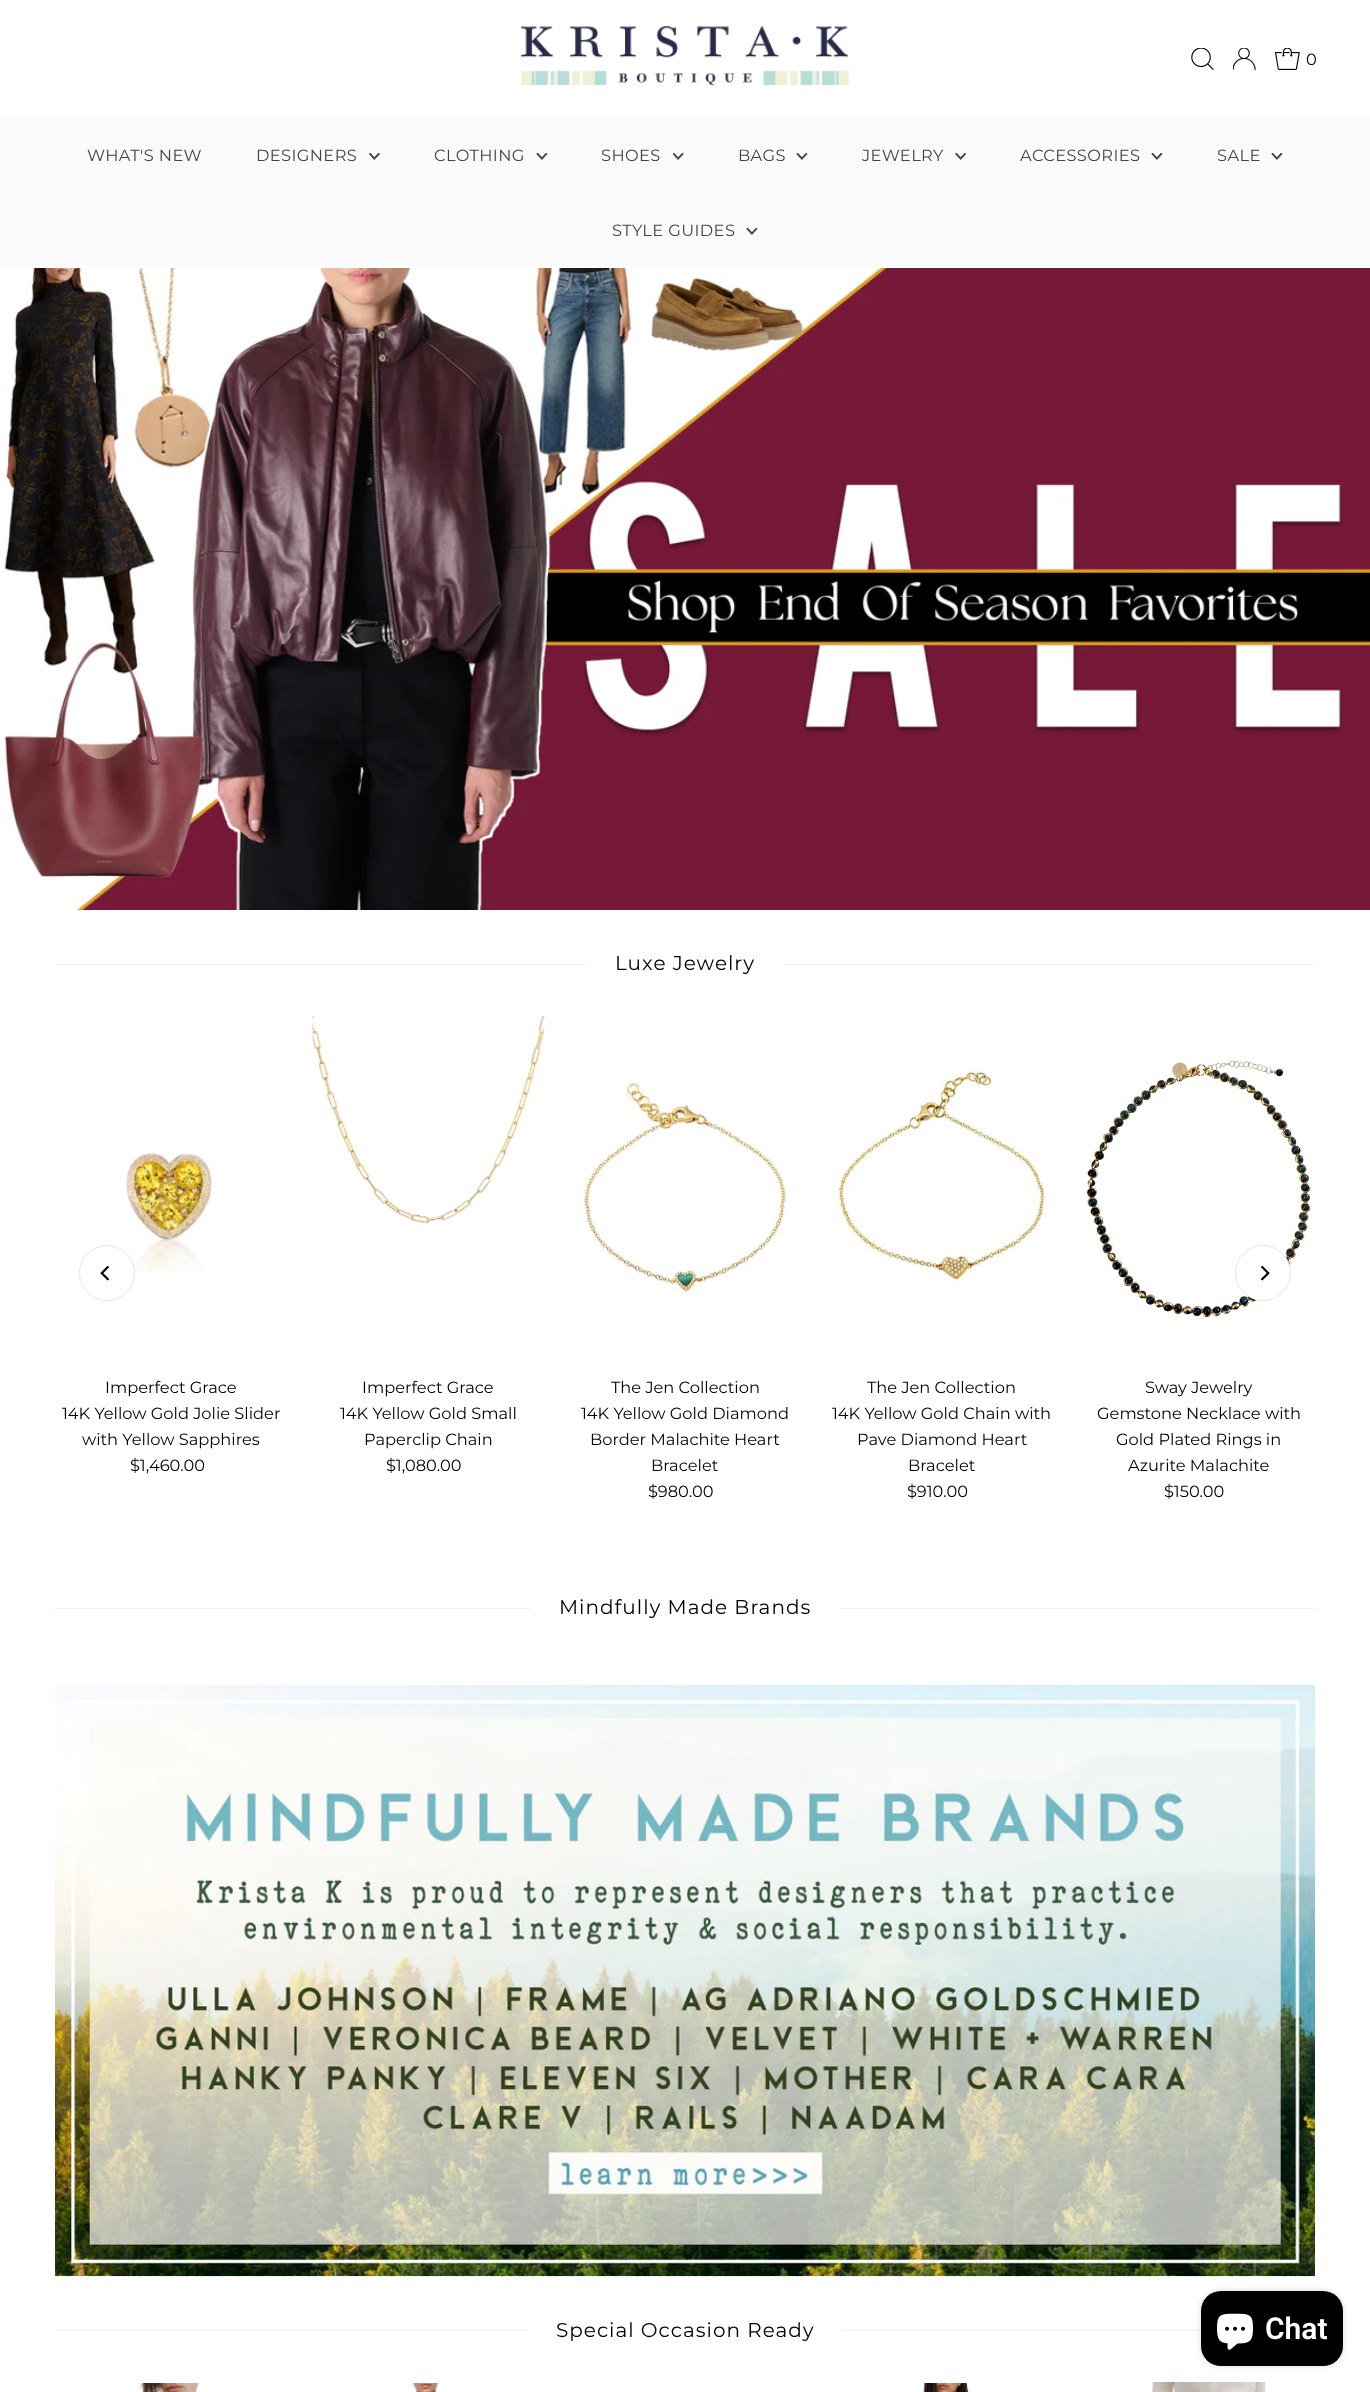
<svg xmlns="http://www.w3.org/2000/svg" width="1370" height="2392">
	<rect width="100%" height="100%" fill="#FFFFFF" />
	<image x="521" y="26" width="328" height="59" href="assets/img1.png" />
	<image x="1191" y="48" width="23" height="22" href="assets/img2.png" />
	<image x="1233" y="48" width="23" height="22" href="assets/img3.png" />
	<image x="1275" y="48" width="25" height="22" href="assets/img4.png" />
	<text x="1306" y="65" font-family="Montserrat" font-size="16.25" fill="#000000">0</text>
	<rect x="0" y="116" width="1370" height="150" fill="#FAFAFA" />
	<g font-family="Montserrat" font-size="16.25" letter-spacing="0.4" fill="#444444">
		<text x="87" y="161">WHAT'S NEW</text>
		<text x="256" y="161">DESIGNERS</text>
	</g>
	<image x="369" y="153" width="11" height="7" href="assets/img5.png" />
	<text x="434" y="161" font-family="Montserrat" font-size="16.25" letter-spacing="0.4" fill="#444444">CLOTHING</text>
	<image x="536" y="153" width="12" height="7" href="assets/img6.png" />
	<text x="601" y="161" font-family="Montserrat" font-size="16.25" letter-spacing="0.4" fill="#444444">SHOES</text>
	<image x="673" y="153" width="11" height="7" href="assets/img7.png" />
	<text x="738" y="161" font-family="Montserrat" font-size="16.25" letter-spacing="0.4" fill="#444444">BAGS</text>
	<image x="796" y="153" width="12" height="7" href="assets/img6.png" />
	<text x="862" y="161" font-family="Montserrat" font-size="16.25" letter-spacing="0.4" fill="#444444">JEWELRY</text>
	<image x="955" y="153" width="11" height="7" href="assets/img8.png" />
	<text x="1020" y="161" font-family="Montserrat" font-size="16.25" letter-spacing="0.4" fill="#444444">ACCESSORIES</text>
	<image x="1151" y="153" width="12" height="7" href="assets/img6.png" />
	<text x="1217" y="161" font-family="Montserrat" font-size="16.25" letter-spacing="0.4" fill="#444444">SALE</text>
	<image x="1271" y="153" width="12" height="7" href="assets/img6.png" />
	<text x="612" y="236" font-family="Montserrat" font-size="16.25" letter-spacing="0.4" fill="#444444">STYLE GUIDES</text>
	<image x="746" y="228" width="12" height="7" href="assets/img6.png" />
	<image x="4" y="268" width="1366" height="642" href="assets/img9.png" />
	<rect x="55" y="964" width="1260" height="1" fill="#F0F0F0" />
	<rect x="586" y="964" width="198" height="1" fill="#FFFFFF" />
	<text x="615" y="970" font-family="Montserrat" font-size="20" letter-spacing="1" fill="#000000">Luxe Jewelry</text>
	<image x="126" y="1152" width="87" height="122" href="assets/img12.png" />
	<circle cx="107" cy="1273" r="27.5" fill="#FFFFFF" stroke="#E7E7E7" />
	<image x="100" y="1266" width="10" height="15" href="assets/img10.png" />
	<image x="1085" y="1060" width="226" height="258" href="assets/img16.png" />
	<circle cx="1263" cy="1273" r="27.5" fill="#FFFFFF" stroke="#E7E7E7" />
	<image x="1260" y="1266" width="10" height="15" href="assets/img11.png" />
	<g font-family="Montserrat" font-size="16.25" fill="#000000">
		<text x="105" y="1393">Imperfect Grace</text>
		<text x="62" y="1419">14K Yellow Gold Jolie Slider</text>
		<text x="82" y="1445">with Yellow Sapphires</text>
		<text x="130" y="1471">$1,460.00</text>
	</g>
	<image x="312" y="1016" width="233" height="208" href="assets/img13.png" />
	<g font-family="Montserrat" font-size="16.25" fill="#000000">
		<text x="362" y="1393">Imperfect Grace</text>
		<text x="340" y="1419">14K Yellow Gold Small</text>
		<text x="364" y="1445">Paperclip Chain</text>
		<text x="386" y="1471">$1,080.00</text>
	</g>
	<image x="582" y="1079" width="208" height="216" href="assets/img14.png" />
	<g font-family="Montserrat" font-size="16.25" fill="#000000">
		<text x="611" y="1393">The Jen Collection</text>
		<text x="581" y="1419">14K Yellow Gold Diamond</text>
		<text x="590" y="1445">Border Malachite Heart</text>
		<text x="651" y="1471">Bracelet</text>
		<text x="648" y="1497">$980.00</text>
	</g>
	<image x="834" y="1068" width="215" height="215" href="assets/img15.png" />
	<g font-family="Montserrat" font-size="16.25" fill="#000000">
		<text x="867" y="1393">The Jen Collection</text>
		<text x="832" y="1419">14K Yellow Gold Chain with</text>
		<text x="857" y="1445">Pave Diamond Heart</text>
		<text x="908" y="1471">Bracelet</text>
		<text x="907" y="1497">$910.00</text>
		<text x="1145" y="1393">Sway Jewelry</text>
		<text x="1097" y="1419">Gemstone Necklace with</text>
		<text x="1116" y="1445">Gold Plated Rings in</text>
		<text x="1128" y="1471">Azurite Malachite</text>
		<text x="1164" y="1497">$150.00</text>
	</g>
	<rect x="55" y="1608" width="1260" height="1" fill="#F0F0F0" />
	<rect x="530" y="1608" width="310" height="1" fill="#FFFFFF" />
	<text x="559" y="1614" font-family="Montserrat" font-size="20" letter-spacing="1" fill="#000000">Mindfully Made Brands</text>
	<image x="55" y="1685" width="1260" height="592" href="assets/img17.png" />
	<rect x="55" y="2330" width="1146" height="1" fill="#F0F0F0" />
	<rect x="528" y="2330" width="315" height="1" fill="#FFFFFF" />
	<text x="556" y="2337" font-family="Montserrat" font-size="20" letter-spacing="1" fill="#000000">Special Occasion Ready</text>
	<image x="138" y="2383" width="62" height="9" href="assets/img18.png" />
	<image x="412" y="2383" width="27" height="9" href="assets/img19.png" />
	<image x="923" y="2383" width="46" height="9" href="assets/img20.png" />
	<image x="1152" y="2382" width="114" height="10" href="assets/img21.png" />
	<rect x="1201" y="2291" width="142" height="75" rx="20" fill="#000000" fill-opacity="0.15" filter="blur(3px)" />
	<rect x="1201" y="2291" width="142" height="75" rx="20" fill="#000000" />
	<image x="1217" y="2313" width="36" height="37" href="assets/img22.png" />
	<text x="1265" y="2339" font-family="Roboto" font-size="30" font-weight="600" fill="#FFFFFF">Chat</text>
</svg>
